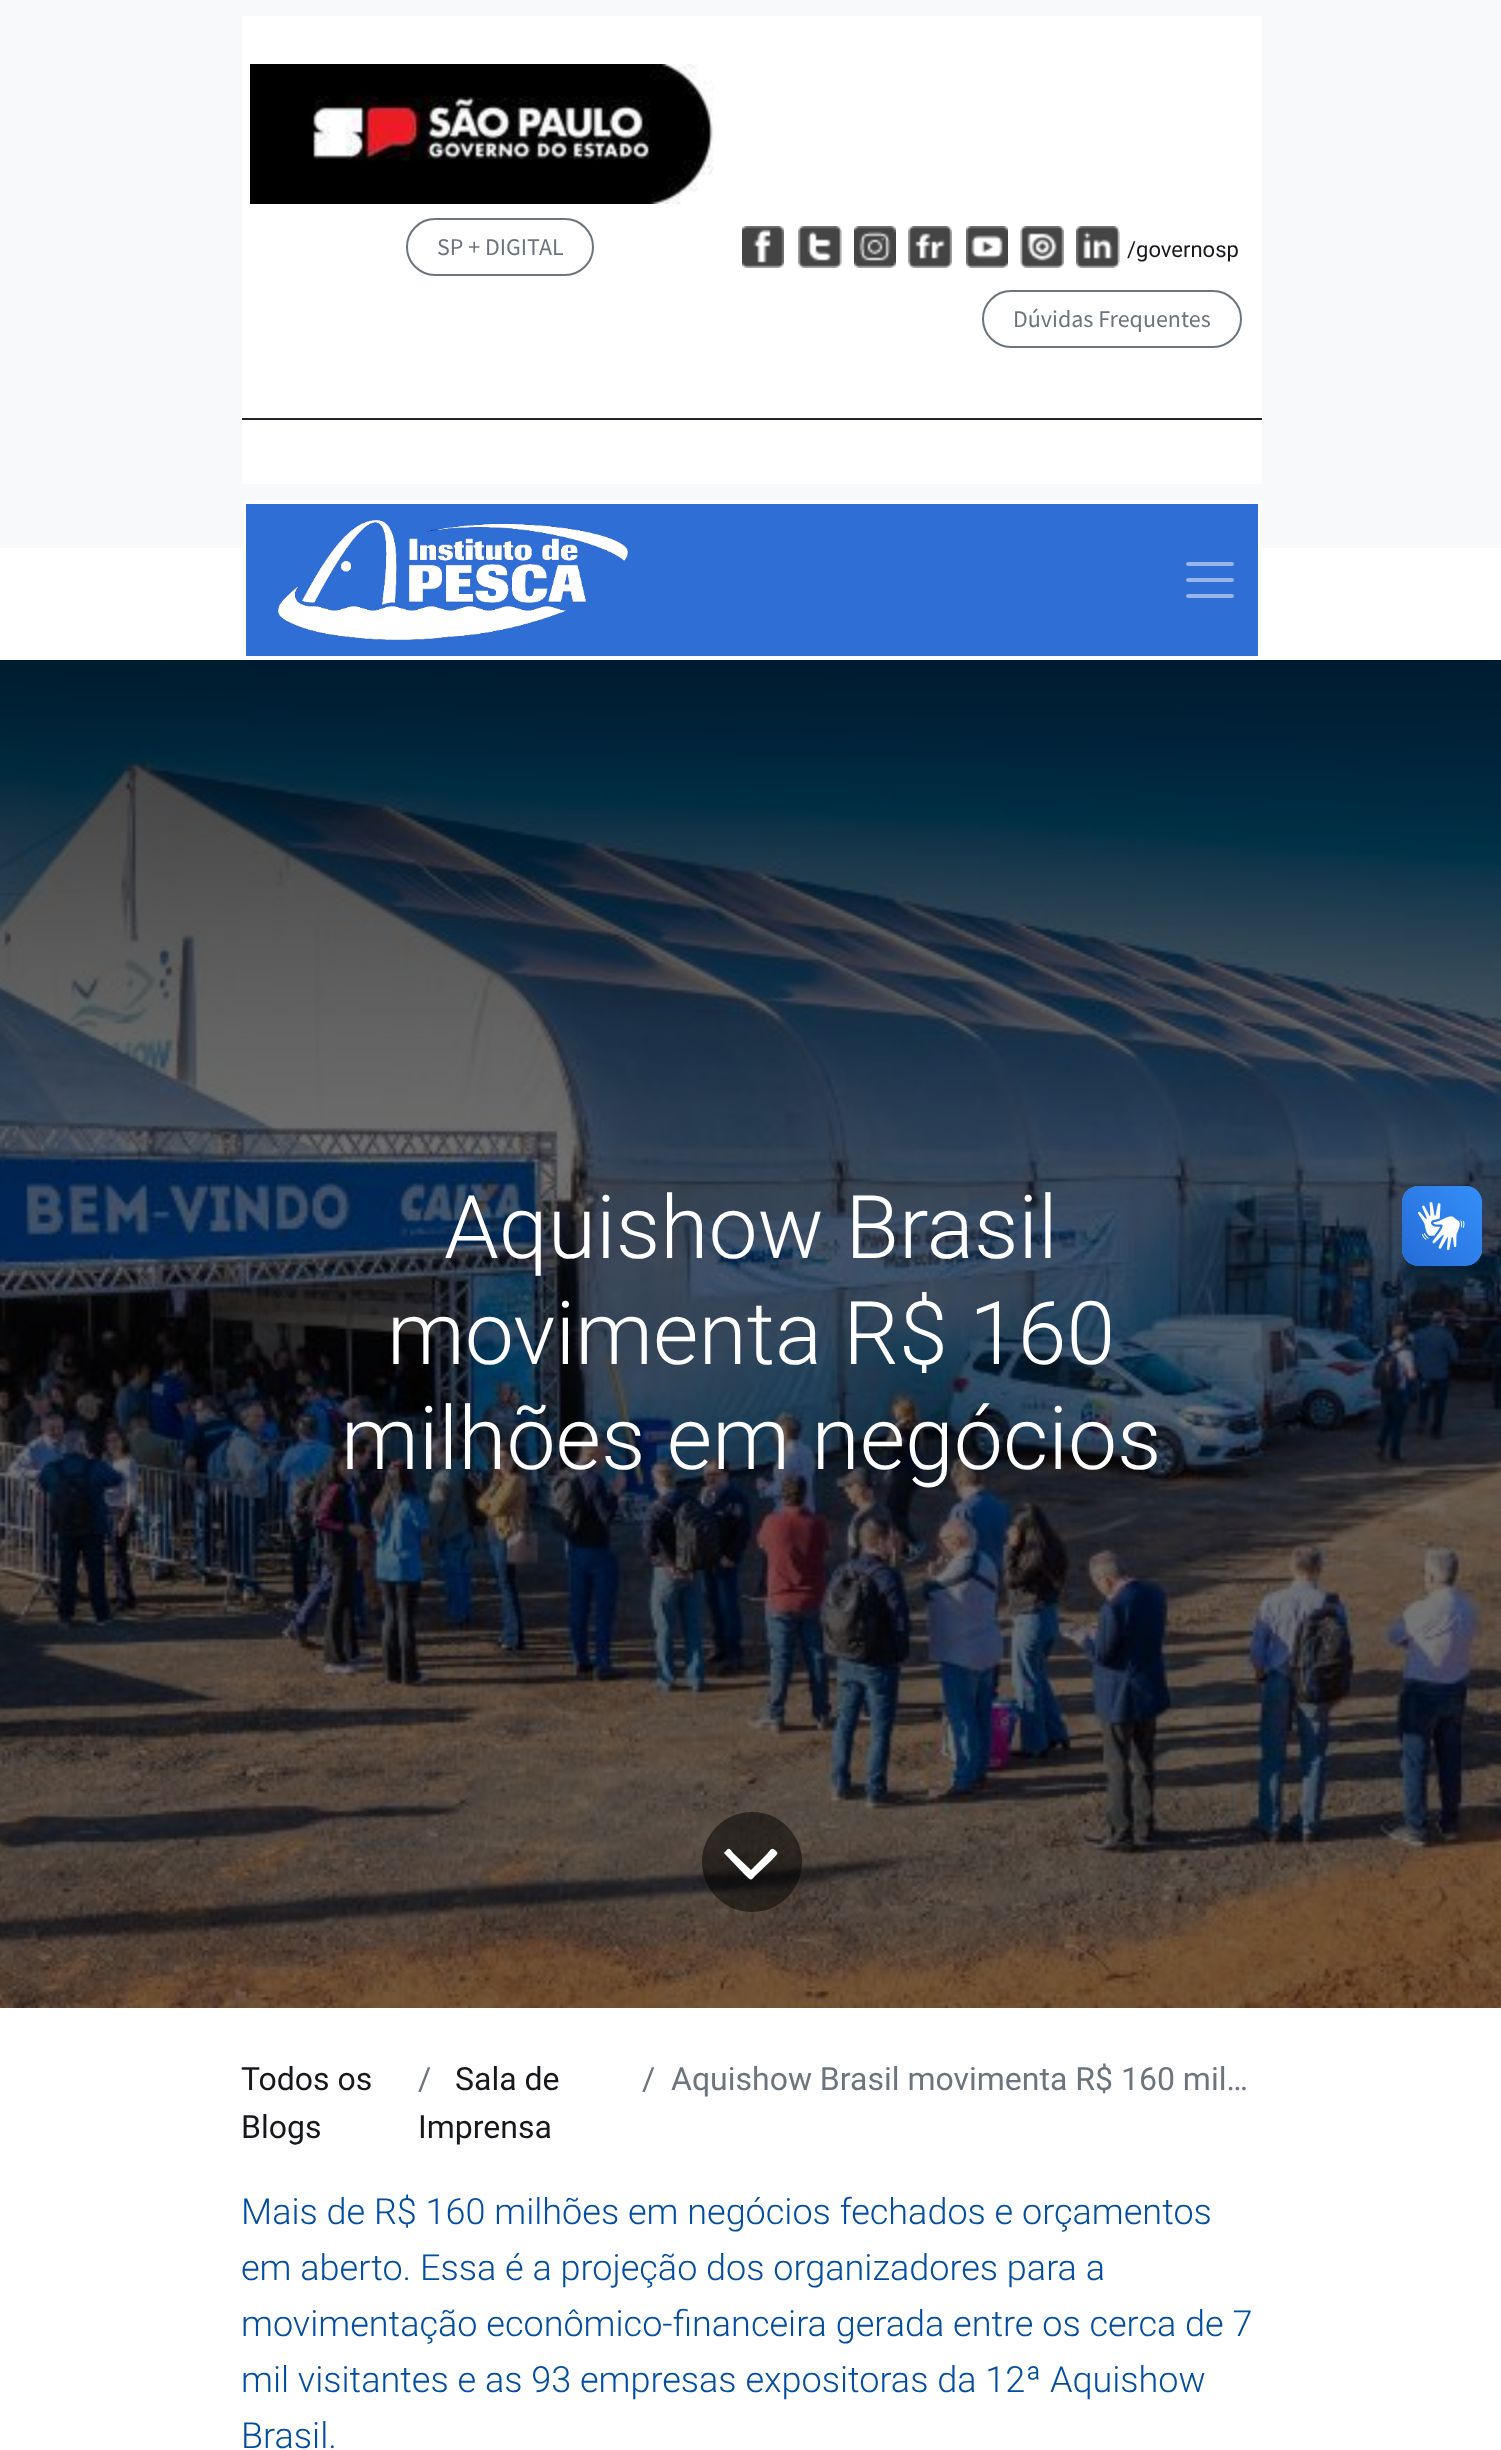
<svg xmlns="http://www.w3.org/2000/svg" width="1501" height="2450">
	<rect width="100%" height="100%" fill="#FFFFFF" />
	<rect x="0" y="0" width="1501" height="548" fill="#F8F9FA" />
	<rect x="242" y="16" width="1020" height="468" fill="#FFFFFF" />
	<image x="250" y="64" width="464" height="140" href="assets/img1.png" />
	<rect x="407" y="219" width="186" height="56" rx="28" fill="none" stroke="#6C757D" stroke-width="2" />
	<text x="437" y="255" font-family="Source Sans Pro" font-size="24" fill="#6C757D">SP + DIGITAL</text>
	<image x="742" y="226" width="42" height="42" href="assets/img2.png" />
	<image x="798" y="226" width="44" height="42" href="assets/img3.png" />
	<image x="854" y="226" width="42" height="42" href="assets/img4.png" />
	<image x="908" y="226" width="44" height="42" href="assets/img5.png" />
	<image x="966" y="226" width="42" height="42" href="assets/img6.png" />
	<image x="1020" y="226" width="44" height="42" href="assets/img7.png" />
	<image x="1076" y="226" width="44" height="42" href="assets/img8.png" />
	<text x="1127" y="257" font-family="Roboto" font-size="22" fill="#16181B">/governosp</text>
	<rect x="983" y="291" width="258" height="56" rx="28" fill="none" stroke="#6C757D" stroke-width="2" />
	<text x="1013" y="327" font-family="Source Sans Pro" font-size="24" fill="#6C757D">Dúvidas Frequentes</text>
	<rect x="242" y="418" width="1020" height="2" fill="#212529" />
	<rect x="244" y="502" width="1016" height="156" fill="#2F6ED5" stroke="#FFFFFF" stroke-width="4" />
	<image x="278" y="520" width="350" height="120" href="assets/img9.png" />
	<path d="M1188 564H1232M1188 580H1232M1188 596H1232" fill="none" stroke="#97B7EA" stroke-width="4" stroke-linecap="round" />
	<image x="0" y="660" width="1501" height="1348" href="assets/img10.png" />
	<g font-family="Roboto" font-size="87.75" font-weight="300" fill="#FFFFFF">
		<text x="444" y="1258">Aquishow Brasil</text>
		<text x="387" y="1364">movimenta R$ 160</text>
		<text x="341" y="1469">milhões em negócios</text>
	</g>
	<circle cx="752" cy="1862" r="50" fill="#000000" fill-opacity="0.5" />
	<path d="M777 1852C779 1854 773 1858 773 1859L756 1875C750 1881 752 1881 745 1875L725 1854C723 1853 725 1852 726 1851C729 1847 730 1849 733 1853L751 1870L765 1856C772 1849 771 1846 777 1852Z" fill="#FFFFFF" />
	<g font-family="Roboto" font-size="32" fill="#16181B">
		<text x="241" y="2090">Todos os</text>
		<text x="241" y="2138">Blogs</text>
	</g>
	<text x="418" y="2090" font-family="Roboto" font-size="32" fill="#6C757D">/</text>
	<g font-family="Roboto" font-size="32" fill="#16181B">
		<text x="455" y="2090">Sala de</text>
		<text x="418" y="2138">Imprensa</text>
	</g>
	<g font-family="Roboto" font-size="32" fill="#6C757D">
		<text x="642" y="2090">/</text>
		<text x="671" y="2090">Aquishow Brasil movimenta R$ 160 mil…</text>
	</g>
	<g font-family="Roboto" font-size="36" font-weight="300" fill="#034EA2">
		<text x="241" y="2224">Mais de R$ 160 milhões em negócios fechados e orçamentos</text>
		<text x="241" y="2280">em aberto. Essa é a projeção dos organizadores para a</text>
		<text x="241" y="2336">movimentação econômico-financeira gerada entre os cerca de 7</text>
		<text x="241" y="2392">mil visitantes e as 93 empresas expositoras da 12ª Aquishow</text>
		<text x="241" y="2448">Brasil.</text>
	</g>
	<image x="1402" y="1186" width="80" height="80" href="assets/img11.png" />
	<image x="1402" y="1186" width="80" height="80" href="assets/img12.png" />
</svg>
